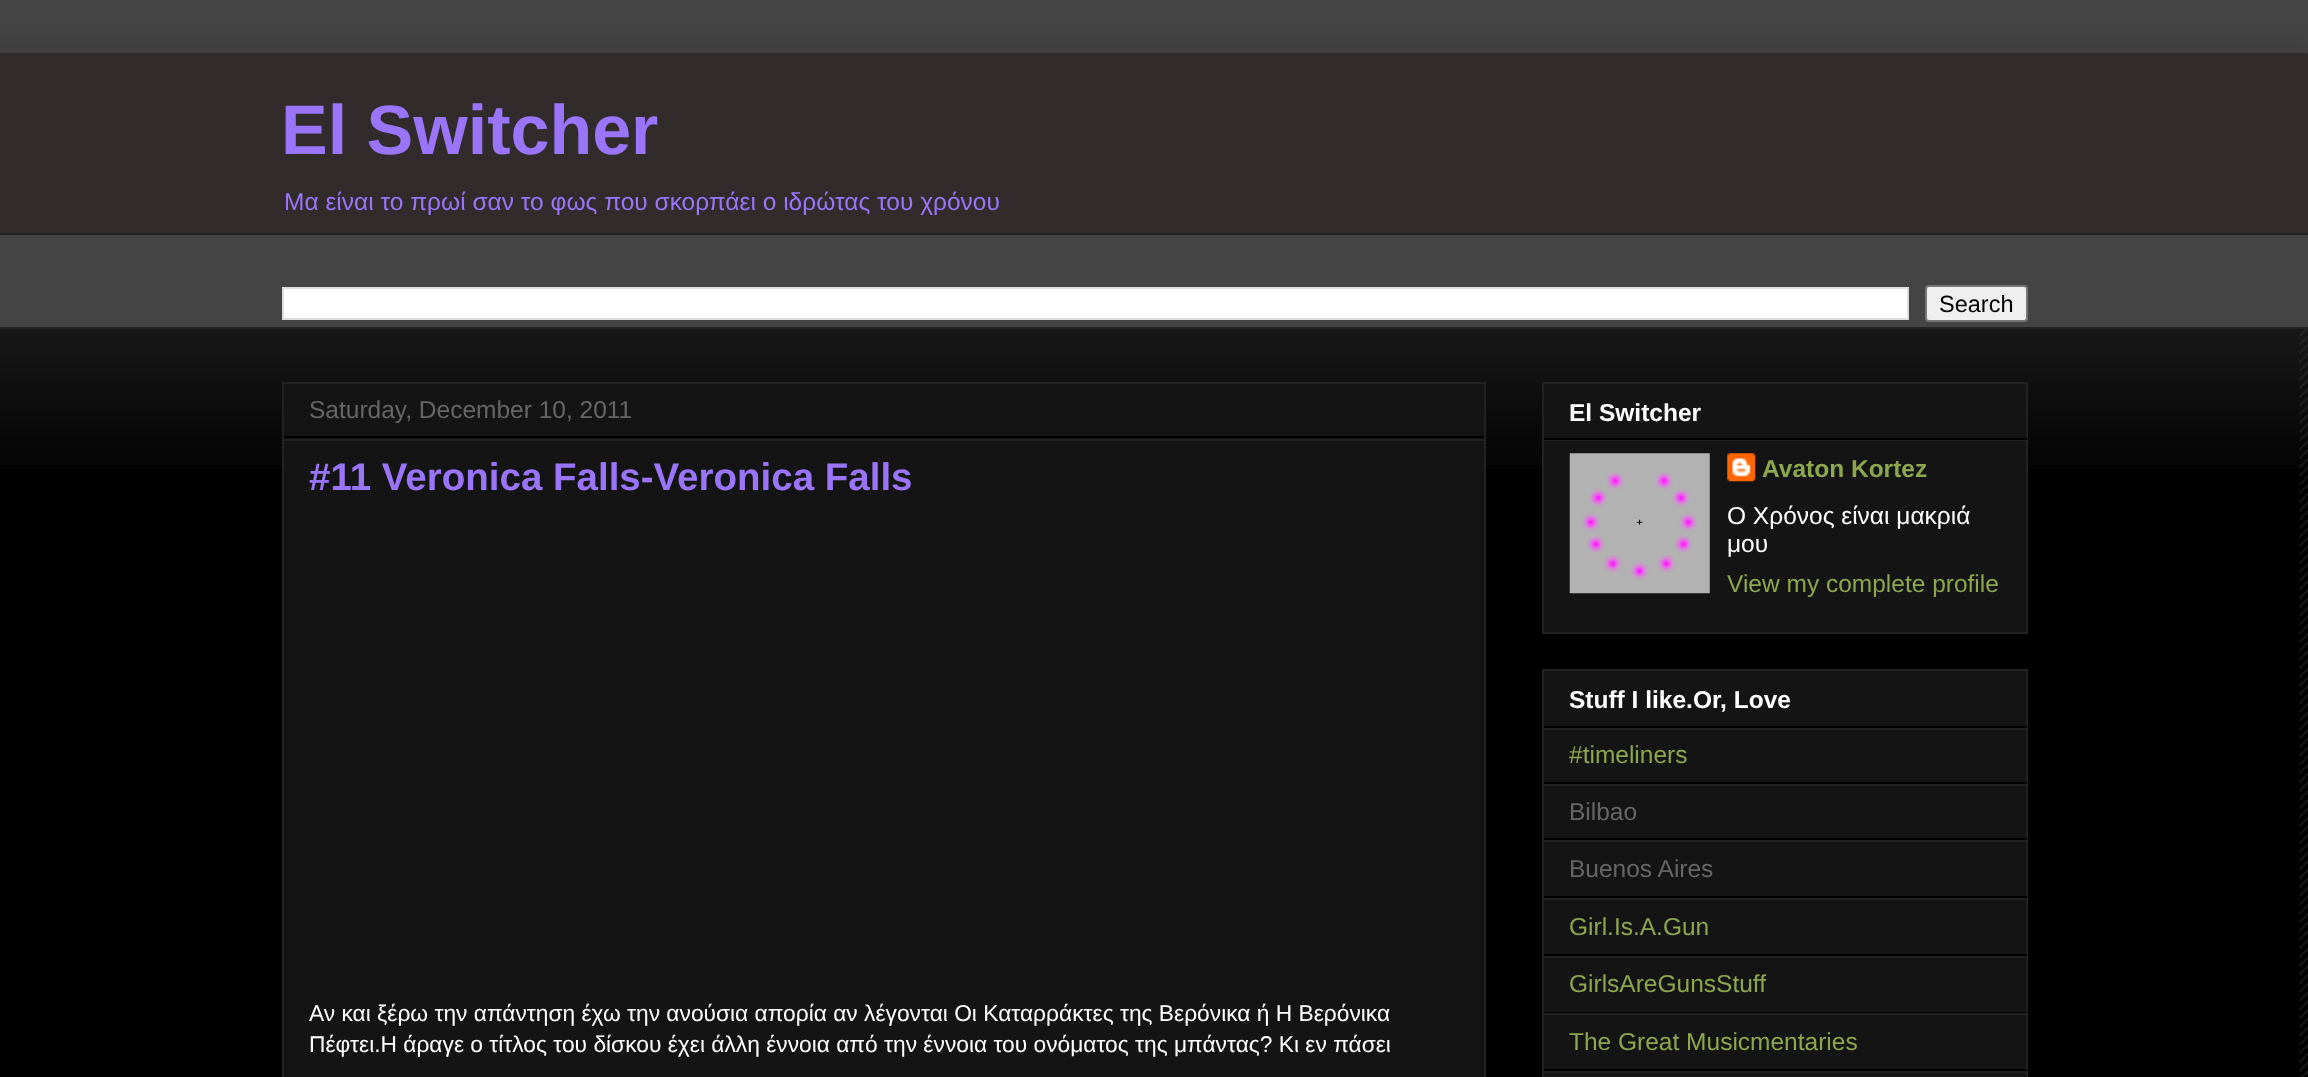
<svg xmlns="http://www.w3.org/2000/svg" width="2308" height="1077">
	<rect width="100%" height="100%" fill="#000000" />
	<image x="2299" y="23" width="9" height="1054" href="assets/img1.png" />
	<image x="0" y="0" width="2308" height="469" href="assets/img2.png" />
	<rect x="0" y="53" width="2308" height="180" fill="#322B2B" />
	<text x="281" y="154" font-family="Liberation Sans" font-size="70" font-weight="700" fill="#9A75FA">El Switcher</text>
	<text x="284" y="210" font-family="Liberation Sans" font-size="24.5" fill="#9A75FA">Μα είναι το πρωί σαν το φως που σκορπάει ο ιδρώτας του χρόνου</text>
	<rect x="0" y="235" width="2308" height="92" fill="#444444" />
	<rect x="0" y="233" width="2308" height="2" fill="#222222" />
	<rect x="283" y="288" width="1625" height="31" fill="#FFFFFF" stroke="#DDDDDD" stroke-width="2" />
	<rect x="1926" y="286" width="101" height="35" rx="3" fill="#EFEFEF" stroke="#767676" stroke-width="2" />
	<text x="1939" y="312" font-family="Liberation Sans" font-size="23.5" fill="#000000">Search</text>
	<rect x="0" y="327" width="2308" height="2" fill="#222222" />
	<rect x="283" y="383" width="1202" height="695" fill="#141414" stroke="#222222" stroke-width="2" />
	<rect x="284" y="436" width="1200" height="2" fill="#000000" />
	<text x="309" y="418" font-family="Liberation Sans" font-size="24.5" fill="#666666">Saturday, December 10, 2011</text>
	<rect x="284" y="439" width="1200" height="2" fill="#222222" />
	<text x="309" y="490" font-family="Liberation Sans" font-size="38.5" font-weight="700" fill="#9A75FA">#11 Veronica Falls-Veronica Falls</text>
	<g font-family="Liberation Sans" font-size="22.75" fill="#FFFFFF">
		<text x="309" y="1021">Αν και ξέρω την απάντηση έχω την ανούσια απορία αν λέγονται Οι Καταρράκτες της Βερόνικα ή Η Βερόνικα</text>
		<text x="309" y="1052">Πέφτει.Η άραγε ο τίτλος του δίσκου έχει άλλη έννοια από την έννοια του ονόματος της μπάντας? Κι εν πάσει</text>
	</g>
	<rect x="1543" y="383" width="484" height="250" fill="#141414" stroke="#222222" stroke-width="2" />
	<rect x="1544" y="438" width="483" height="2" fill="#000000" />
	<text x="1569" y="421" font-family="Liberation Sans" font-size="24.5" font-weight="700" fill="#FFFFFF">El Switcher</text>
	<rect x="1544" y="440" width="483" height="1" fill="#222222" />
	<image x="1569" y="453" width="141" height="141" href="assets/img3.png" />
	<image x="1727" y="453" width="29" height="29" href="assets/img4.png" />
	<text x="1762" y="477" font-family="Liberation Sans" font-size="24.5" font-weight="700" fill="#8DA74E">Avaton Kortez</text>
	<g font-family="Liberation Sans" font-size="24.5" fill="#FFFFFF">
		<text x="1727" y="524">O Χρόνος είναι μακριά</text>
		<text x="1727" y="552">μου</text>
	</g>
	<text x="1727" y="592" font-family="Liberation Sans" font-size="24.5" fill="#8DA74E">View my complete profile</text>
	<rect x="1543" y="670" width="484" height="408" fill="#141414" stroke="#222222" stroke-width="2" />
	<rect x="1544" y="726" width="483" height="2" fill="#000000" />
	<text x="1569" y="708" font-family="Liberation Sans" font-size="24.5" font-weight="700" fill="#FFFFFF">Stuff I like.Or, Love</text>
	<rect x="1544" y="728" width="483" height="2" fill="#222222" />
	<rect x="1544" y="782" width="483" height="2" fill="#000000" />
	<text x="1569" y="763" font-family="Liberation Sans" font-size="24.5" fill="#8DA74E">#timeliners</text>
	<rect x="1544" y="784" width="483" height="2" fill="#222222" />
	<rect x="1544" y="838" width="483" height="2" fill="#000000" />
	<text x="1569" y="820" font-family="Liberation Sans" font-size="24.5" fill="#666666">Bilbao</text>
	<rect x="1544" y="840" width="483" height="2" fill="#222222" />
	<rect x="1544" y="896" width="483" height="2" fill="#000000" />
	<text x="1569" y="877" font-family="Liberation Sans" font-size="24.5" fill="#666666">Buenos Aires</text>
	<rect x="1544" y="898" width="483" height="2" fill="#222222" />
	<rect x="1544" y="954" width="483" height="2" fill="#000000" />
	<text x="1569" y="935" font-family="Liberation Sans" font-size="24.5" fill="#8DA74E">Girl.Is.A.Gun</text>
	<rect x="1544" y="956" width="483" height="2" fill="#222222" />
	<rect x="1544" y="1012" width="483" height="1" fill="#000000" />
	<text x="1569" y="992" font-family="Liberation Sans" font-size="24.5" fill="#8DA74E">GirlsAreGunsStuff</text>
	<rect x="1544" y="1013" width="483" height="2" fill="#222222" />
	<rect x="1544" y="1069" width="483" height="2" fill="#000000" />
	<text x="1569" y="1050" font-family="Liberation Sans" font-size="24.5" fill="#8DA74E">The Great Musicmentaries</text>
	<rect x="1544" y="1071" width="483" height="2" fill="#222222" />
</svg>
